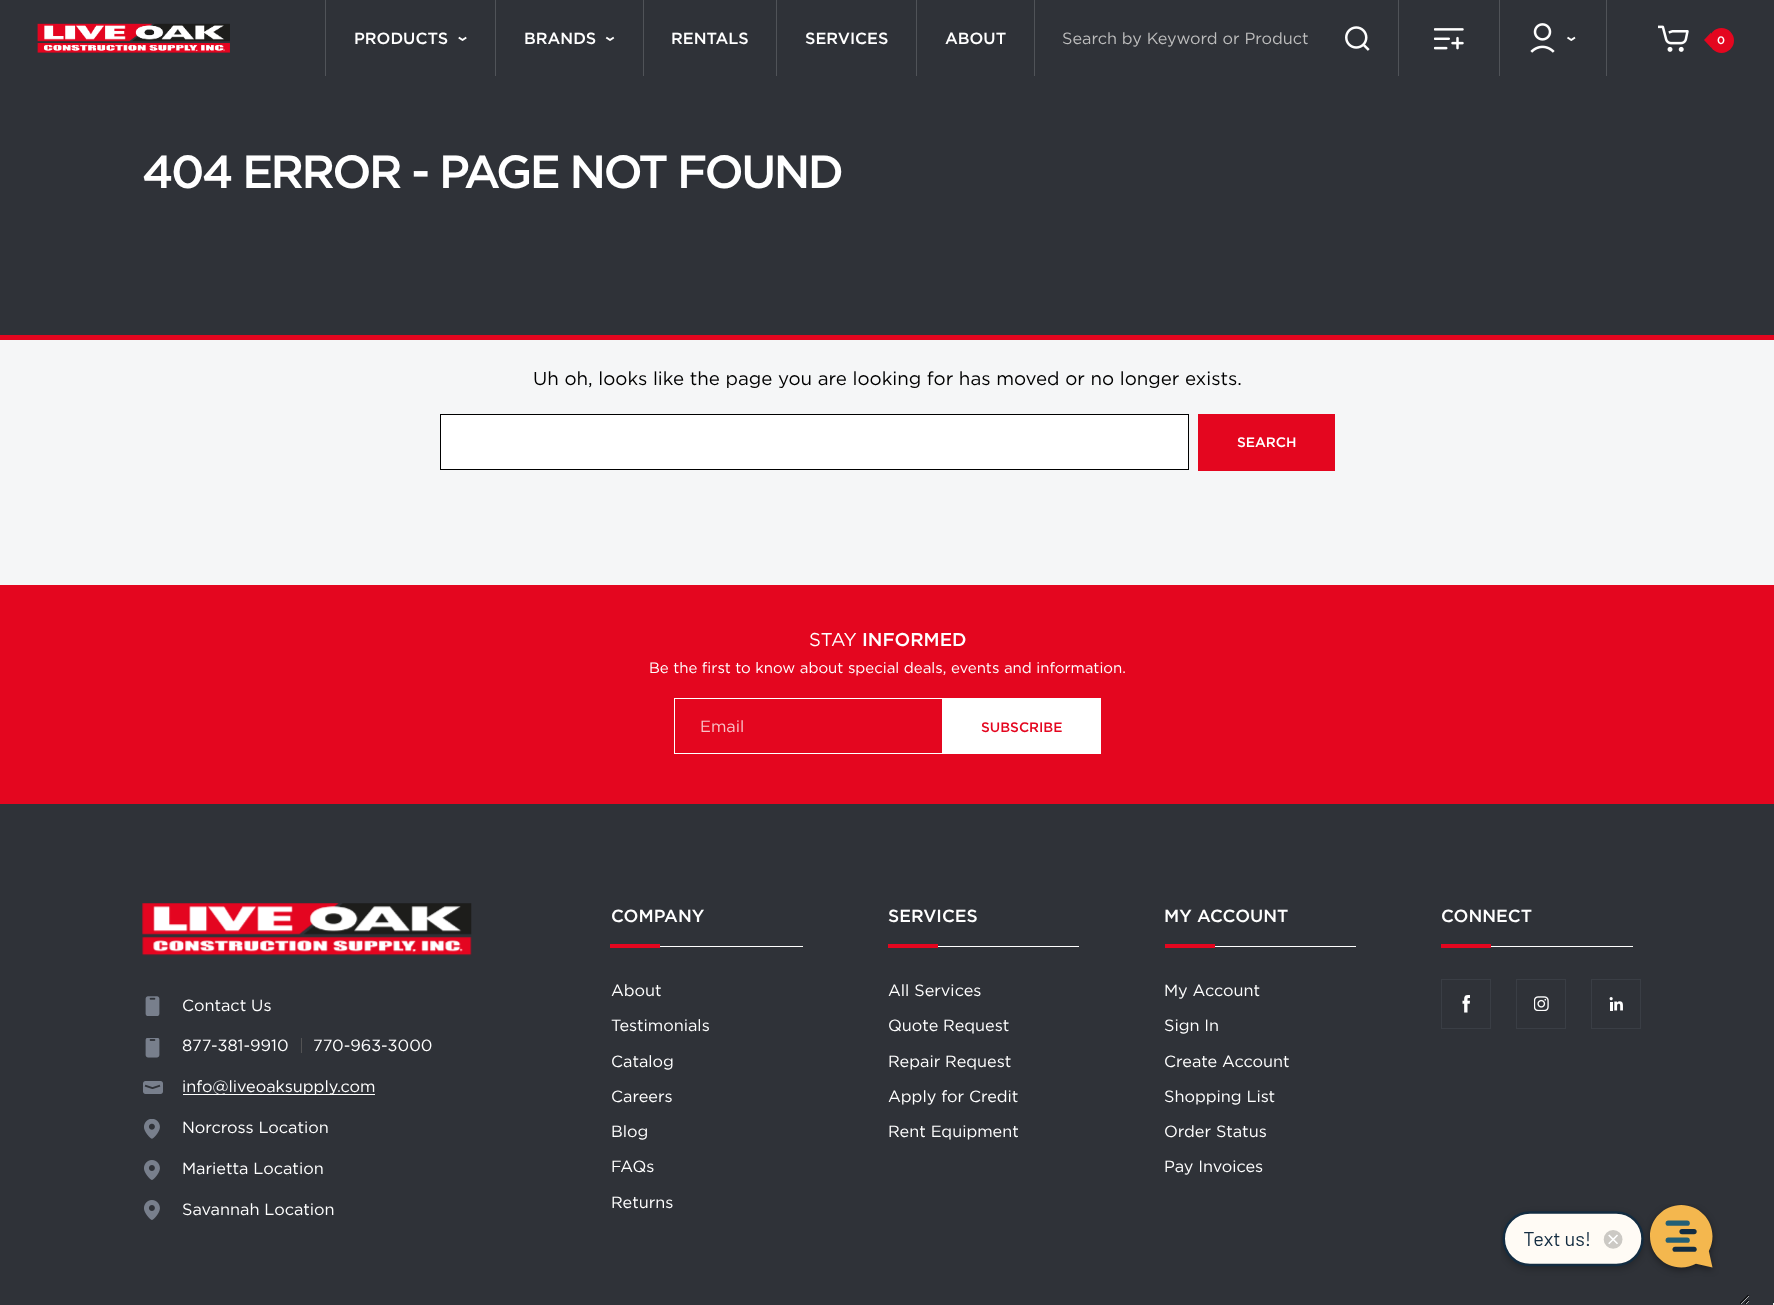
<svg xmlns="http://www.w3.org/2000/svg" width="1774" height="1305">
	<rect width="100%" height="100%" fill="#F5F6F7" />
	<rect x="0" y="0" width="1774" height="335" fill="#2F3238" />
	<image x="37" y="23" width="193" height="30" href="assets/img1.png" />
	<rect x="325" y="0" width="1" height="76" fill="#505358" />
	<text x="354" y="44" font-family="Gotham" font-size="16.25" font-weight="500" fill="#FFFFFF">PRODUCTS</text>
	<image x="458" y="36" width="9" height="5" href="assets/img2.png" />
	<rect x="495" y="0" width="1" height="76" fill="#505358" />
	<text x="524" y="44" font-family="Gotham" font-size="16.25" font-weight="500" fill="#FFFFFF">BRANDS</text>
	<image x="605" y="36" width="10" height="5" href="assets/img3.png" />
	<rect x="643" y="0" width="1" height="76" fill="#505358" />
	<text x="671" y="44" font-family="Gotham" font-size="16.25" font-weight="500" fill="#FFFFFF">RENTALS</text>
	<rect x="776" y="0" width="1" height="76" fill="#505358" />
	<text x="805" y="44" font-family="Gotham" font-size="16.25" font-weight="500" fill="#FFFFFF">SERVICES</text>
	<rect x="916" y="0" width="1" height="76" fill="#505358" />
	<text x="945" y="44" font-family="Gotham" font-size="16.25" font-weight="500" fill="#FFFFFF">ABOUT</text>
	<rect x="1034" y="0" width="1" height="76" fill="#505358" />
	<text x="1062" y="44" font-family="Gotham" font-size="16.25" fill="#BDBDBD">Search by Keyword or Product</text>
	<image x="1345" y="26" width="25" height="25" href="assets/img4.png" />
	<rect x="1398" y="0" width="1" height="76" fill="#505358" />
	<image x="1434" y="28" width="30" height="22" href="assets/img5.png" />
	<rect x="1499" y="0" width="1" height="76" fill="#505358" />
	<image x="1530" y="23" width="25" height="30" href="assets/img6.png" />
	<image x="1567" y="36" width="9" height="5" href="assets/img7.png" />
	<rect x="1606" y="0" width="1" height="76" fill="#505358" />
	<image x="1658" y="25" width="31" height="27" href="assets/img8.png" />
	<circle cx="1721.5" cy="40.5" r="12.5" fill="#E4061F" />
	<path d="M1711 32.5V47.5L1704 40Z" fill="#E4061F" />
	<text x="1717" y="44" font-family="Gotham" font-size="11" font-weight="500" fill="#FFFFFF">0</text>
	<rect x="0" y="335" width="1774" height="5" fill="#E4061F" />
	<text x="142" y="188" font-family="Gotham" font-size="46.25" font-weight="500" letter-spacing="-2.55" fill="#FFFFFF">404 ERROR - PAGE NOT FOUND</text>
	<text x="533" y="385" font-family="Gotham" font-size="18.75" fill="#000000">Uh oh, looks like the page you are looking for has moved or no longer exists.</text>
	<rect x="440.5" y="414.5" width="748" height="55" fill="#FFFFFF" stroke="#000000" />
	<rect x="1198" y="414" width="137" height="57" fill="#E4061F" />
	<text x="1237" y="447" font-family="Gotham" font-size="13.75" font-weight="500" fill="#FFFFFF">SEARCH</text>
	<rect x="0" y="585" width="1774" height="219" fill="#E4061F" />
	<text x="809" y="646" font-family="Gotham" font-size="18.5" fill="#FFFFFF">STAY</text>
	<text x="862" y="646" font-family="Gotham" font-size="18.5" font-weight="500" fill="#FFFFFF">INFORMED</text>
	<text x="649" y="673" font-family="Gotham" font-size="15" fill="#FFFFFF">Be the first to know about special deals, events and information.</text>
	<rect x="674.5" y="698.5" width="268" height="55" fill="none" stroke="#FFFFFF" />
	<text x="700" y="732" font-family="Gotham" font-size="16.25" fill="#F8C1C7">Email</text>
	<rect x="943" y="698" width="158" height="56" fill="#FFFFFF" />
	<text x="981" y="732" font-family="Gotham" font-size="13.75" font-weight="500" fill="#E4061F">SUBSCRIBE</text>
	<rect x="0" y="804" width="1774" height="501" fill="#2F3238" />
	<image x="142" y="903" width="330" height="53" href="assets/img9.png" />
	<image x="145" y="996" width="15" height="20" href="assets/img10.png" />
	<text x="182" y="1011" font-family="Gotham" font-size="16.25" fill="#FFFFFF">Contact Us</text>
	<image x="145" y="1038" width="15" height="20" href="assets/img11.png" />
	<text x="182" y="1051" font-family="Gotham" font-size="16.25" fill="#FFFFFF">877-381-9910</text>
	<text x="299" y="1051" font-family="Gotham" font-size="16.25" fill="#555555">|</text>
	<text x="313" y="1051" font-family="Gotham" font-size="16.25" fill="#FFFFFF">770-963-3000</text>
	<image x="143" y="1081" width="20" height="13" href="assets/img12.png" />
	<rect x="183" y="1094" width="192" height="1" fill="#FFFFFF" />
	<text x="182" y="1092" font-family="Gotham" font-size="16.25" fill="#FFFFFF">info@liveoaksupply.com</text>
	<image x="144" y="1119" width="16" height="20" href="assets/img13.png" />
	<text x="182" y="1133" font-family="Gotham" font-size="16.25" fill="#FFFFFF">Norcross Location</text>
	<image x="144" y="1160" width="16" height="20" href="assets/img14.png" />
	<text x="182" y="1174" font-family="Gotham" font-size="16.25" fill="#FFFFFF">Marietta Location</text>
	<image x="144" y="1200" width="16" height="20" href="assets/img14.png" />
	<text x="182" y="1215" font-family="Gotham" font-size="16.25" fill="#FFFFFF">Savannah Location</text>
	<rect x="660" y="946" width="143" height="1" fill="#FFFFFF" />
	<text x="611" y="922" font-family="Gotham" font-size="17.5" font-weight="500" fill="#FFFFFF">COMPANY</text>
	<rect x="610" y="944" width="50" height="4" fill="#E4061F" />
	<g font-family="Gotham" font-size="16.25" fill="#FFFFFF">
		<text x="611" y="996">About</text>
		<text x="611" y="1031">Testimonials</text>
		<text x="611" y="1067">Catalog</text>
		<text x="611" y="1102">Careers</text>
		<text x="611" y="1137">Blog</text>
		<text x="611" y="1172">FAQs</text>
		<text x="611" y="1208">Returns</text>
	</g>
	<rect x="938" y="946" width="141" height="1" fill="#FFFFFF" />
	<text x="888" y="922" font-family="Gotham" font-size="17.5" font-weight="500" fill="#FFFFFF">SERVICES</text>
	<rect x="888" y="944" width="50" height="4" fill="#E4061F" />
	<g font-family="Gotham" font-size="16.25" fill="#FFFFFF">
		<text x="888" y="996">All Services</text>
		<text x="888" y="1031">Quote Request</text>
		<text x="888" y="1067">Repair Request</text>
		<text x="888" y="1102">Apply for Credit</text>
		<text x="888" y="1137">Rent Equipment</text>
	</g>
	<rect x="1215" y="946" width="141" height="1" fill="#FFFFFF" />
	<text x="1164" y="922" font-family="Gotham" font-size="17.5" font-weight="500" fill="#FFFFFF">MY ACCOUNT</text>
	<rect x="1165" y="944" width="50" height="4" fill="#E4061F" />
	<g font-family="Gotham" font-size="16.25" fill="#FFFFFF">
		<text x="1164" y="996">My Account</text>
		<text x="1164" y="1031">Sign In</text>
		<text x="1164" y="1067">Create Account</text>
		<text x="1164" y="1102">Shopping List</text>
		<text x="1164" y="1137">Order Status</text>
		<text x="1164" y="1172">Pay Invoices</text>
	</g>
	<rect x="1491" y="946" width="142" height="1" fill="#FFFFFF" />
	<text x="1441" y="922" font-family="Gotham" font-size="17.5" font-weight="500" fill="#FFFFFF">CONNECT</text>
	<rect x="1441" y="944" width="50" height="4" fill="#E4061F" />
	<rect x="1441.5" y="979.5" width="49" height="49" fill="none" stroke="#3A3E45" />
	<image x="1462" y="995" width="8" height="18" href="assets/img15.png" />
	<rect x="1516.5" y="979.5" width="49" height="49" fill="none" stroke="#3A3E45" />
	<image x="1534" y="996" width="15" height="15" href="assets/img16.png" />
	<rect x="1591.5" y="979.5" width="49" height="49" fill="none" stroke="#3A3E45" />
	<image x="1609" y="997" width="14" height="14" href="assets/img17.png" />
	<image x="1501" y="1204" width="248" height="100" href="assets/img18.png" />
	<rect x="1773" y="1303" width="1" height="2" fill="#F5F5F5" />
</svg>
